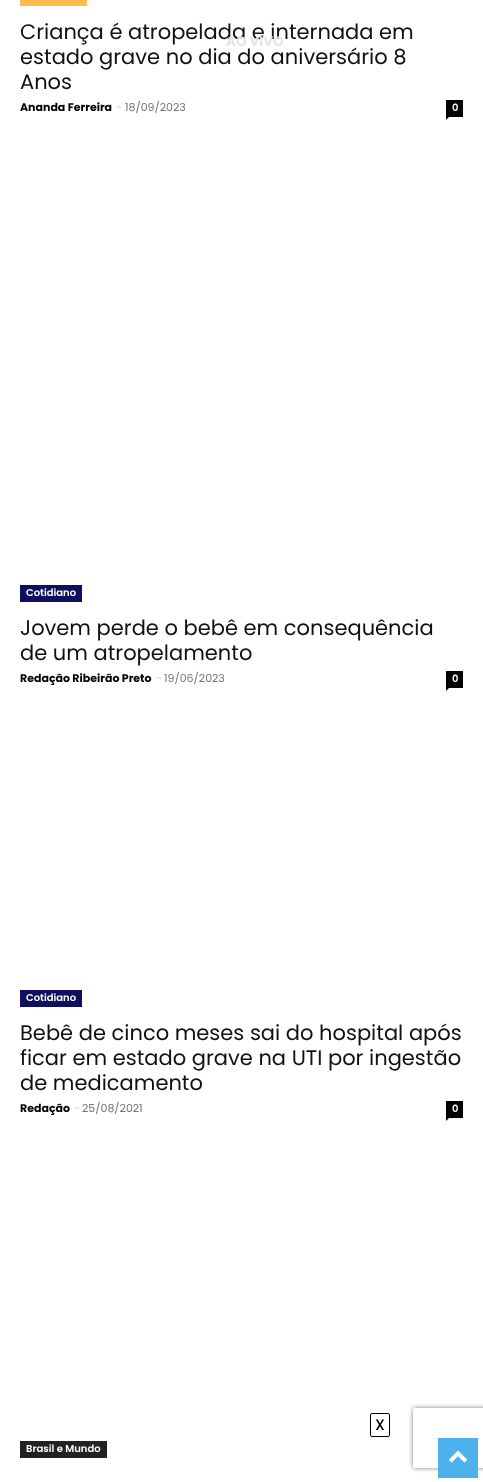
<svg xmlns="http://www.w3.org/2000/svg" width="483" height="1482">
	<defs>
		<clipPath id="clip1"><path d="M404 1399H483V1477H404ZM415 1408H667C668 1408 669 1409 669 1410V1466C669 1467 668 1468 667 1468H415C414 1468 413 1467 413 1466V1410C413 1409 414 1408 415 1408Z" clip-rule="evenodd" /></clipPath>
	</defs>
	<rect width="100%" height="100%" fill="#FFFFFF" />
	<rect x="20" y="0" width="67" height="6" fill="#FFBA50" />
	<g font-family="Poppins" font-size="21" fill="#111111">
		<text x="20" y="39">Criança é atropelada e internada em</text>
		<text x="20" y="64">estado grave no dia do aniversário 8</text>
		<text x="20" y="89">Anos</text>
	</g>
	<text x="20" y="111" font-family="Poppins" font-size="11" font-weight="700" fill="#000000">Ananda Ferreira</text>
	<text x="116" y="111" font-family="Poppins" font-size="11" fill="#CCCCCC">-</text>
	<text x="125" y="111" font-family="Poppins" font-size="11" fill="#767676">18/09/2023</text>
	<rect x="446" y="100" width="17" height="17" fill="#000000" />
	<text x="452" y="111" font-family="Poppins" font-size="10" font-weight="600" fill="#FFFFFF">0</text>
	<path d="M446 117H449L446 120Z" fill="#000000" />
	<rect x="20" y="585" width="62" height="17" fill="#0F0F60" />
	<text x="26" y="596" font-family="Poppins" font-size="10" font-weight="600" fill="#FFFFFF">Cotidiano</text>
	<g font-family="Poppins" font-size="21" fill="#111111">
		<text x="20" y="635">Jovem perde o bebê em consequência</text>
		<text x="20" y="660">de um atropelamento</text>
	</g>
	<text x="20" y="682" font-family="Poppins" font-size="11" font-weight="700" fill="#000000">Redação Ribeirão Preto</text>
	<text x="156" y="682" font-family="Poppins" font-size="11" fill="#CCCCCC">-</text>
	<text x="164" y="682" font-family="Poppins" font-size="11" fill="#767676">19/06/2023</text>
	<rect x="446" y="671" width="17" height="17" fill="#000000" />
	<text x="452" y="682" font-family="Poppins" font-size="10" font-weight="600" fill="#FFFFFF">0</text>
	<path d="M446 688H449L446 691Z" fill="#000000" />
	<rect x="20" y="990" width="62" height="17" fill="#0F0F60" />
	<text x="26" y="1001" font-family="Poppins" font-size="10" font-weight="600" fill="#FFFFFF">Cotidiano</text>
	<g font-family="Poppins" font-size="21" fill="#111111">
		<text x="20" y="1040">Bebê de cinco meses sai do hospital após</text>
		<text x="20" y="1065">ficar em estado grave na UTI por ingestão</text>
		<text x="20" y="1090">de medicamento</text>
	</g>
	<text x="20" y="1112" font-family="Poppins" font-size="11" font-weight="700" fill="#000000">Redação</text>
	<text x="74" y="1112" font-family="Poppins" font-size="11" fill="#CCCCCC">-</text>
	<text x="82" y="1112" font-family="Poppins" font-size="11" fill="#767676">25/08/2021</text>
	<rect x="446" y="1101" width="17" height="17" fill="#000000" />
	<text x="452" y="1112" font-family="Poppins" font-size="10" font-weight="600" fill="#FFFFFF">0</text>
	<path d="M446 1118H449L446 1121Z" fill="#000000" />
	<rect x="20" y="1441" width="87" height="17" fill="#222222" />
	<text x="26" y="1452" font-family="Poppins" font-size="10" font-weight="600" fill="#FFFFFF">Brasil e Mundo</text>
	<rect x="370.5" y="1413.5" width="19" height="23" rx="1.5" fill="none" stroke="#000000" />
	<text x="375" y="1430" font-family="Poppins" font-size="15" font-weight="500" fill="#000000">X</text>
	<text x="226" y="46" font-family="Poppins" font-size="13.5" font-weight="700" fill="#E5E5E5">AO VIVO</text>
	<g clip-path="url(#clip1)">
		<rect x="413" y="1408" width="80" height="60" rx="2" fill="#808080" filter="blur(2.5px)" />
	</g>
	<rect x="438" y="1438" width="40" height="40" fill="#4DB2EC" />
	<image x="449" y="1450" width="18" height="13" href="assets/img1.png" />
</svg>
